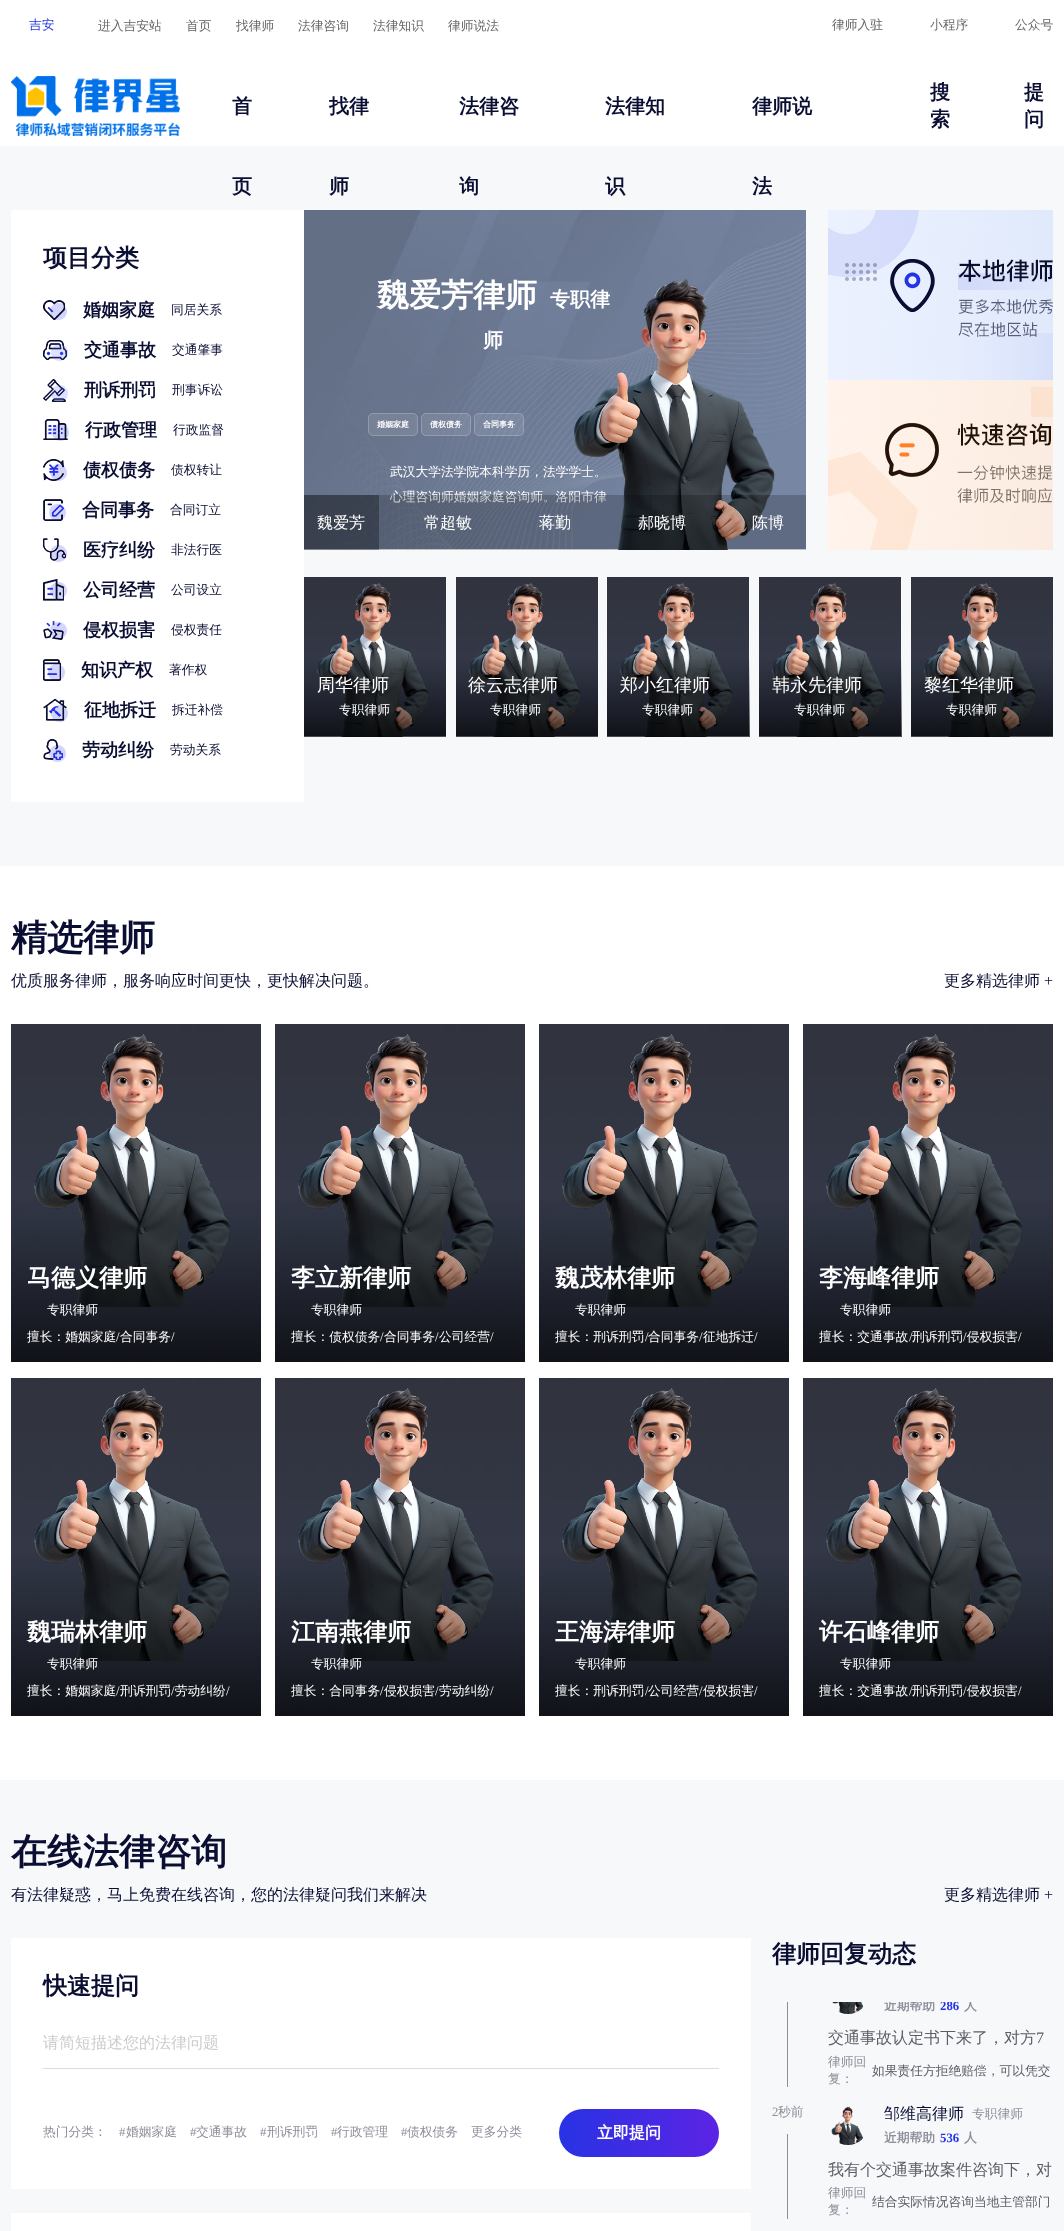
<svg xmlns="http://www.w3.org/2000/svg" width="1064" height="2231">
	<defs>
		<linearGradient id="g1" gradientUnits="userSpaceOnUse" x1="375" y1="737" x2="375" y2="657"><stop offset="0" stop-color="#000000" stop-opacity="0.7" /><stop offset="1" stop-color="#000000" stop-opacity="0" /></linearGradient>
		<linearGradient id="g2" gradientUnits="userSpaceOnUse" x1="527" y1="737" x2="527" y2="657"><stop offset="0" stop-color="#000000" stop-opacity="0.7" /><stop offset="1" stop-color="#000000" stop-opacity="0" /></linearGradient>
		<linearGradient id="g3" gradientUnits="userSpaceOnUse" x1="679" y1="737" x2="679" y2="657"><stop offset="0" stop-color="#000000" stop-opacity="0.7" /><stop offset="1" stop-color="#000000" stop-opacity="0" /></linearGradient>
		<linearGradient id="g4" gradientUnits="userSpaceOnUse" x1="831" y1="737" x2="831" y2="657"><stop offset="0" stop-color="#000000" stop-opacity="0.7" /><stop offset="1" stop-color="#000000" stop-opacity="0" /></linearGradient>
		<linearGradient id="g5" gradientUnits="userSpaceOnUse" x1="982" y1="737" x2="982" y2="657"><stop offset="0" stop-color="#000000" stop-opacity="0.7" /><stop offset="1" stop-color="#000000" stop-opacity="0" /></linearGradient>
		<linearGradient id="g6" gradientUnits="userSpaceOnUse" x1="136" y1="1362" x2="136" y2="1193"><stop offset="0" stop-color="#000000" stop-opacity="0.7" /><stop offset="1" stop-color="#000000" stop-opacity="0" /></linearGradient>
		<linearGradient id="g7" gradientUnits="userSpaceOnUse" x1="400" y1="1362" x2="400" y2="1193"><stop offset="0" stop-color="#000000" stop-opacity="0.7" /><stop offset="1" stop-color="#000000" stop-opacity="0" /></linearGradient>
		<linearGradient id="g8" gradientUnits="userSpaceOnUse" x1="664" y1="1362" x2="664" y2="1193"><stop offset="0" stop-color="#000000" stop-opacity="0.7" /><stop offset="1" stop-color="#000000" stop-opacity="0" /></linearGradient>
		<linearGradient id="g9" gradientUnits="userSpaceOnUse" x1="928" y1="1362" x2="928" y2="1193"><stop offset="0" stop-color="#000000" stop-opacity="0.7" /><stop offset="1" stop-color="#000000" stop-opacity="0" /></linearGradient>
		<linearGradient id="g10" gradientUnits="userSpaceOnUse" x1="136" y1="1716" x2="136" y2="1547"><stop offset="0" stop-color="#000000" stop-opacity="0.7" /><stop offset="1" stop-color="#000000" stop-opacity="0" /></linearGradient>
		<linearGradient id="g11" gradientUnits="userSpaceOnUse" x1="400" y1="1716" x2="400" y2="1547"><stop offset="0" stop-color="#000000" stop-opacity="0.7" /><stop offset="1" stop-color="#000000" stop-opacity="0" /></linearGradient>
		<linearGradient id="g12" gradientUnits="userSpaceOnUse" x1="664" y1="1716" x2="664" y2="1547"><stop offset="0" stop-color="#000000" stop-opacity="0.7" /><stop offset="1" stop-color="#000000" stop-opacity="0" /></linearGradient>
		<linearGradient id="g13" gradientUnits="userSpaceOnUse" x1="928" y1="1716" x2="928" y2="1547"><stop offset="0" stop-color="#000000" stop-opacity="0.7" /><stop offset="1" stop-color="#000000" stop-opacity="0" /></linearGradient>
		<linearGradient id="g14" gradientUnits="userSpaceOnUse" x1="559" y1="2133" x2="719" y2="2133"><stop offset="0" stop-color="#2832E4" /><stop offset="1" stop-color="#5C24E4" /></linearGradient>
		<clipPath id="clip1"><rect x="772" y="2002" width="281" height="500" /></clipPath>
	</defs>
	<rect width="100%" height="100%" fill="#FFFFFF" />
	<text x="29" y="29" font-family="WenQuanYi Zen Hei" font-size="12.75" font-weight="500" fill="#2433E4">吉安</text>
	<g font-family="WenQuanYi Zen Hei" font-size="12.75" font-weight="500" fill="#666666">
		<text x="98" y="30">进入吉安站</text>
		<text x="186" y="30">首页</text>
		<text x="236" y="30">找律师</text>
		<text x="298" y="30">法律咨询</text>
		<text x="373" y="30">法律知识</text>
		<text x="448" y="30">律师说法</text>
		<text x="832" y="29">律师入驻</text>
		<text x="930" y="29">小程序</text>
		<text x="1015" y="29">公众号</text>
	</g>
	<image x="11" y="76" width="169" height="60" href="assets/img1.png" />
	<text x="232" y="113" font-family="WenQuanYi Zen Hei" font-size="20" font-weight="700" fill="#0A0E33">首</text>
	<rect x="0" y="146" width="1064" height="720" fill="#F7F8FA" />
	<g font-family="WenQuanYi Zen Hei" font-size="20" font-weight="700" fill="#0A0E33">
		<text x="232" y="193">页</text>
		<text x="329" y="113">找律</text>
		<text x="329" y="193">师</text>
		<text x="459" y="113">法律咨</text>
		<text x="459" y="193">询</text>
		<text x="605" y="113">法律知</text>
		<text x="605" y="193">识</text>
		<text x="752" y="113">律师说</text>
		<text x="752" y="193">法</text>
		<text x="930" y="99">搜</text>
		<text x="930" y="126">索</text>
		<text x="1024" y="99">提</text>
		<text x="1024" y="126">问</text>
	</g>
	<rect x="11" y="210" width="293" height="592" fill="#FFFFFF" />
	<text x="43" y="266" font-family="WenQuanYi Zen Hei" font-size="24" font-weight="700" fill="#0A0E33">项目分类</text>
	<image x="43" y="300" width="24" height="20" href="assets/img2.png" />
	<text x="83" y="316" font-family="WenQuanYi Zen Hei" font-size="18" font-weight="700" fill="#0A0E33">婚姻家庭</text>
	<text x="171" y="314" font-family="WenQuanYi Zen Hei" font-size="12.75" font-weight="500" fill="#0A0E33">同居关系</text>
	<image x="43" y="340" width="25" height="21" href="assets/img3.png" />
	<text x="84" y="356" font-family="WenQuanYi Zen Hei" font-size="18" font-weight="700" fill="#0A0E33">交通事故</text>
	<text x="172" y="354" font-family="WenQuanYi Zen Hei" font-size="12.75" font-weight="500" fill="#0A0E33">交通肇事</text>
	<image x="43" y="379" width="25" height="23" href="assets/img4.png" />
	<text x="84" y="396" font-family="WenQuanYi Zen Hei" font-size="18" font-weight="700" fill="#0A0E33">刑诉刑罚</text>
	<text x="172" y="394" font-family="WenQuanYi Zen Hei" font-size="12.75" font-weight="500" fill="#0A0E33">刑事诉讼</text>
	<image x="43" y="419" width="26" height="22" href="assets/img5.png" />
	<text x="85" y="436" font-family="WenQuanYi Zen Hei" font-size="18" font-weight="700" fill="#0A0E33">行政管理</text>
	<text x="173" y="434" font-family="WenQuanYi Zen Hei" font-size="12.75" font-weight="500" fill="#0A0E33">行政监督</text>
	<image x="43" y="459" width="24" height="22" href="assets/img6.png" />
	<text x="83" y="476" font-family="WenQuanYi Zen Hei" font-size="18" font-weight="700" fill="#0A0E33">债权债务</text>
	<text x="171" y="474" font-family="WenQuanYi Zen Hei" font-size="12.75" font-weight="500" fill="#0A0E33">债权转让</text>
	<image x="43" y="499" width="23" height="22" href="assets/img7.png" />
	<text x="82" y="516" font-family="WenQuanYi Zen Hei" font-size="18" font-weight="700" fill="#0A0E33">合同事务</text>
	<text x="170" y="514" font-family="WenQuanYi Zen Hei" font-size="12.75" font-weight="500" fill="#0A0E33">合同订立</text>
	<image x="43" y="538" width="24" height="24" href="assets/img8.png" />
	<text x="83" y="556" font-family="WenQuanYi Zen Hei" font-size="18" font-weight="700" fill="#0A0E33">医疗纠纷</text>
	<text x="171" y="554" font-family="WenQuanYi Zen Hei" font-size="12.75" font-weight="500" fill="#0A0E33">非法行医</text>
	<image x="43" y="579" width="24" height="22" href="assets/img9.png" />
	<text x="83" y="596" font-family="WenQuanYi Zen Hei" font-size="18" font-weight="700" fill="#0A0E33">公司经营</text>
	<text x="171" y="594" font-family="WenQuanYi Zen Hei" font-size="12.75" font-weight="500" fill="#0A0E33">公司设立</text>
	<image x="43" y="621" width="24" height="19" href="assets/img10.png" />
	<text x="83" y="636" font-family="WenQuanYi Zen Hei" font-size="18" font-weight="700" fill="#0A0E33">侵权损害</text>
	<text x="171" y="634" font-family="WenQuanYi Zen Hei" font-size="12.75" font-weight="500" fill="#0A0E33">侵权责任</text>
	<image x="43" y="659" width="22" height="22" href="assets/img11.png" />
	<text x="81" y="676" font-family="WenQuanYi Zen Hei" font-size="18" font-weight="700" fill="#0A0E33">知识产权</text>
	<text x="169" y="674" font-family="WenQuanYi Zen Hei" font-size="12.75" font-weight="500" fill="#0A0E33">著作权</text>
	<image x="43" y="699" width="25" height="23" href="assets/img12.png" />
	<text x="84" y="716" font-family="WenQuanYi Zen Hei" font-size="18" font-weight="700" fill="#0A0E33">征地拆迁</text>
	<text x="172" y="714" font-family="WenQuanYi Zen Hei" font-size="12.75" font-weight="500" fill="#0A0E33">拆迁补偿</text>
	<image x="43" y="739" width="23" height="23" href="assets/img13.png" />
	<text x="82" y="756" font-family="WenQuanYi Zen Hei" font-size="18" font-weight="700" fill="#0A0E33">劳动纠纷</text>
	<text x="170" y="754" font-family="WenQuanYi Zen Hei" font-size="12.75" font-weight="500" fill="#0A0E33">劳动关系</text>
	<image x="304" y="210" width="502" height="340" href="assets/img14.png" />
	<text x="377" y="306" font-family="WenQuanYi Zen Hei" font-size="32" font-weight="700" fill="#FFFFFF">魏爱芳律师</text>
	<image x="574" y="278" width="201" height="272" href="assets/img15.png" />
	<g font-family="WenQuanYi Zen Hei" font-size="20" font-weight="700" fill="#FFFFFF">
		<text x="550" y="306">专职律</text>
		<text x="483" y="347">师</text>
	</g>
	<rect x="368" y="413" width="50" height="23" rx="5" fill="#FFFFFF" fill-opacity="0.1" />
	<rect x="368.5" y="413.5" width="49" height="22" rx="4.5" fill="none" stroke="#FFFFFF" stroke-opacity="0.2" />
	<text x="377" y="427" font-family="WenQuanYi Zen Hei" font-size="8" font-weight="700" fill="#FFFFFF">婚姻家庭</text>
	<rect x="421" y="413" width="50" height="23" rx="5" fill="#FFFFFF" fill-opacity="0.1" />
	<rect x="421.5" y="413.5" width="49" height="22" rx="4.5" fill="none" stroke="#FFFFFF" stroke-opacity="0.2" />
	<text x="430" y="427" font-family="WenQuanYi Zen Hei" font-size="8" font-weight="700" fill="#FFFFFF">债权债务</text>
	<rect x="474" y="413" width="50" height="23" rx="5" fill="#FFFFFF" fill-opacity="0.1" />
	<rect x="474.5" y="413.5" width="49" height="22" rx="4.5" fill="none" stroke="#FFFFFF" stroke-opacity="0.2" />
	<text x="483" y="427" font-family="WenQuanYi Zen Hei" font-size="8" font-weight="700" fill="#FFFFFF">合同事务</text>
	<g font-family="WenQuanYi Zen Hei" font-size="12.75" font-weight="500" fill="#FFFFFF">
		<text x="390" y="476">武汉大学法学院本科学历，法学学士。</text>
		<text x="390" y="501">心理咨询师婚姻家庭咨询师。洛阳市律</text>
	</g>
	<rect x="304" y="495" width="502" height="55" fill="#000000" fill-opacity="0.2" />
	<rect x="304" y="495" width="75" height="55" fill="#000000" fill-opacity="0.3" />
	<g font-family="WenQuanYi Zen Hei" font-size="16" font-weight="500" fill="#FFFFFF">
		<text x="317" y="528">魏爱芳</text>
		<text x="424" y="528">常超敏</text>
		<text x="539" y="528">蒋勤</text>
		<text x="638" y="528">郝晓博</text>
		<text x="752" y="528">陈博</text>
	</g>
	<image x="828" y="210" width="225" height="170" href="assets/img16.png" />
	<image x="828" y="380" width="225" height="170" href="assets/img17.png" />
	<image x="304" y="577" width="142" height="159" href="assets/img18.png" />
	<image x="317" y="583" width="112" height="154" href="assets/img19.png" />
	<rect x="304" y="659" width="142" height="78" fill="url(#g1)" />
	<text x="317" y="691" font-family="WenQuanYi Zen Hei" font-size="18" font-weight="500" fill="#FFFFFF">周华律师</text>
	<text x="339" y="714" font-family="WenQuanYi Zen Hei" font-size="12.75" font-weight="500" fill="#FFFFFF">专职律师</text>
	<image x="456" y="577" width="142" height="159" href="assets/img18.png" />
	<image x="469" y="583" width="112" height="154" href="assets/img19.png" />
	<rect x="456" y="659" width="142" height="78" fill="url(#g2)" />
	<text x="468" y="691" font-family="WenQuanYi Zen Hei" font-size="18" font-weight="500" fill="#FFFFFF">徐云志律师</text>
	<text x="490" y="714" font-family="WenQuanYi Zen Hei" font-size="12.75" font-weight="500" fill="#FFFFFF">专职律师</text>
	<image x="607" y="577" width="142" height="159" href="assets/img18.png" />
	<image x="620" y="582" width="113" height="155" href="assets/img20.png" />
	<rect x="607" y="659" width="143" height="78" fill="url(#g3)" />
	<text x="620" y="691" font-family="WenQuanYi Zen Hei" font-size="18" font-weight="500" fill="#FFFFFF">郑小红律师</text>
	<text x="642" y="714" font-family="WenQuanYi Zen Hei" font-size="12.75" font-weight="500" fill="#FFFFFF">专职律师</text>
	<image x="759" y="577" width="142" height="159" href="assets/img18.png" />
	<image x="772" y="582" width="113" height="155" href="assets/img20.png" />
	<rect x="759" y="659" width="143" height="78" fill="url(#g4)" />
	<text x="772" y="691" font-family="WenQuanYi Zen Hei" font-size="18" font-weight="500" fill="#FFFFFF">韩永先律师</text>
	<text x="794" y="714" font-family="WenQuanYi Zen Hei" font-size="12.75" font-weight="500" fill="#FFFFFF">专职律师</text>
	<image x="911" y="577" width="142" height="159" href="assets/img18.png" />
	<image x="924" y="583" width="112" height="154" href="assets/img19.png" />
	<rect x="911" y="659" width="142" height="78" fill="url(#g5)" />
	<text x="924" y="691" font-family="WenQuanYi Zen Hei" font-size="18" font-weight="500" fill="#FFFFFF">黎红华律师</text>
	<text x="946" y="714" font-family="WenQuanYi Zen Hei" font-size="12.75" font-weight="500" fill="#FFFFFF">专职律师</text>
	<text x="11" y="950" font-family="WenQuanYi Zen Hei" font-size="36" font-weight="700" fill="#0A0E33">精选律师</text>
	<g font-family="WenQuanYi Zen Hei" font-size="16" font-weight="500" fill="#0A0E33">
		<text x="11" y="986">优质服务律师，服务响应时间更快，更快解决问题。</text>
		<text x="944" y="986">更多精选律师</text>
	</g>
	<text x="1044" y="986" font-family="Liberation Serif" font-size="16" fill="#0A0E33">+</text>
	<image x="11" y="1024" width="250" height="338" href="assets/img21.png" />
	<image x="34" y="1034" width="196" height="273" href="assets/img22.png" />
	<rect x="11" y="1199" width="250" height="163" fill="url(#g6)" />
	<text x="27" y="1286" font-family="WenQuanYi Zen Hei" font-size="24" font-weight="700" fill="#FFFFFF">马德义律师</text>
	<g font-family="WenQuanYi Zen Hei" font-size="12.75" font-weight="500" fill="#FFFFFF">
		<text x="47" y="1314">专职律师</text>
		<text x="27" y="1341">擅长：婚姻家庭 合同事务</text>
	</g>
	<g font-family="Liberation Serif" font-size="12.75" fill="#FFFFFF">
		<text x="116" y="1341">/</text>
		<text x="171" y="1341">/</text>
	</g>
	<image x="275" y="1024" width="250" height="338" href="assets/img21.png" />
	<image x="298" y="1034" width="196" height="273" href="assets/img23.png" />
	<rect x="275" y="1199" width="250" height="163" fill="url(#g7)" />
	<text x="291" y="1286" font-family="WenQuanYi Zen Hei" font-size="24" font-weight="700" fill="#FFFFFF">李立新律师</text>
	<g font-family="WenQuanYi Zen Hei" font-size="12.75" font-weight="500" fill="#FFFFFF">
		<text x="311" y="1314">专职律师</text>
		<text x="291" y="1341">擅长：债权债务 合同事务</text>
	</g>
	<text x="435" y="1341" font-family="Liberation Serif" font-size="12.75" fill="#FFFFFF">/</text>
	<text x="439" y="1341" font-family="WenQuanYi Zen Hei" font-size="12.75" font-weight="500" fill="#FFFFFF">公司经营</text>
	<g font-family="Liberation Serif" font-size="12.75" fill="#FFFFFF">
		<text x="380" y="1341">/</text>
		<text x="490" y="1341">/</text>
	</g>
	<image x="539" y="1024" width="250" height="338" href="assets/img21.png" />
	<image x="562" y="1034" width="196" height="273" href="assets/img22.png" />
	<rect x="539" y="1199" width="250" height="163" fill="url(#g8)" />
	<text x="555" y="1286" font-family="WenQuanYi Zen Hei" font-size="24" font-weight="700" fill="#FFFFFF">魏茂林律师</text>
	<g font-family="WenQuanYi Zen Hei" font-size="12.75" font-weight="500" fill="#FFFFFF">
		<text x="575" y="1314">专职律师</text>
		<text x="555" y="1341">擅长：刑诉刑罚</text>
	</g>
	<text x="645" y="1341" font-family="Liberation Serif" font-size="12.75" fill="#FFFFFF">/</text>
	<text x="648" y="1341" font-family="WenQuanYi Zen Hei" font-size="12.75" font-weight="500" fill="#FFFFFF">合同事务</text>
	<text x="699" y="1341" font-family="Liberation Serif" font-size="12.75" fill="#FFFFFF">/</text>
	<text x="703" y="1341" font-family="WenQuanYi Zen Hei" font-size="12.75" font-weight="500" fill="#FFFFFF">征地拆迁</text>
	<text x="754" y="1341" font-family="Liberation Serif" font-size="12.75" fill="#FFFFFF">/</text>
	<image x="803" y="1024" width="250" height="338" href="assets/img21.png" />
	<image x="826" y="1034" width="196" height="273" href="assets/img22.png" />
	<rect x="803" y="1199" width="250" height="163" fill="url(#g9)" />
	<text x="819" y="1286" font-family="WenQuanYi Zen Hei" font-size="24" font-weight="700" fill="#FFFFFF">李海峰律师</text>
	<g font-family="WenQuanYi Zen Hei" font-size="12.75" font-weight="500" fill="#FFFFFF">
		<text x="840" y="1314">专职律师</text>
		<text x="819" y="1341">擅长：交通事故</text>
	</g>
	<text x="909" y="1341" font-family="Liberation Serif" font-size="12.75" fill="#FFFFFF">/</text>
	<text x="912" y="1341" font-family="WenQuanYi Zen Hei" font-size="12.75" font-weight="500" fill="#FFFFFF">刑诉刑罚 侵权损害</text>
	<g font-family="Liberation Serif" font-size="12.75" fill="#FFFFFF">
		<text x="963" y="1341">/</text>
		<text x="1018" y="1341">/</text>
	</g>
	<image x="11" y="1378" width="250" height="338" href="assets/img21.png" />
	<image x="34" y="1388" width="196" height="273" href="assets/img22.png" />
	<rect x="11" y="1553" width="250" height="163" fill="url(#g10)" />
	<text x="27" y="1640" font-family="WenQuanYi Zen Hei" font-size="24" font-weight="700" fill="#FFFFFF">魏瑞林律师</text>
	<g font-family="WenQuanYi Zen Hei" font-size="12.75" font-weight="500" fill="#FFFFFF">
		<text x="47" y="1668">专职律师</text>
		<text x="27" y="1695">擅长：婚姻家庭</text>
	</g>
	<text x="116" y="1695" font-family="Liberation Serif" font-size="12.75" fill="#FFFFFF">/</text>
	<text x="120" y="1695" font-family="WenQuanYi Zen Hei" font-size="12.75" font-weight="500" fill="#FFFFFF">刑诉刑罚 劳动纠纷</text>
	<g font-family="Liberation Serif" font-size="12.75" fill="#FFFFFF">
		<text x="171" y="1695">/</text>
		<text x="226" y="1695">/</text>
	</g>
	<image x="275" y="1378" width="250" height="338" href="assets/img21.png" />
	<image x="298" y="1388" width="196" height="273" href="assets/img23.png" />
	<rect x="275" y="1553" width="250" height="163" fill="url(#g11)" />
	<text x="291" y="1640" font-family="WenQuanYi Zen Hei" font-size="24" font-weight="700" fill="#FFFFFF">江南燕律师</text>
	<g font-family="WenQuanYi Zen Hei" font-size="12.75" font-weight="500" fill="#FFFFFF">
		<text x="311" y="1668">专职律师</text>
		<text x="291" y="1695">擅长：合同事务 侵权损害 劳动纠纷</text>
	</g>
	<g font-family="Liberation Serif" font-size="12.75" fill="#FFFFFF">
		<text x="380" y="1695">/</text>
		<text x="435" y="1695">/</text>
		<text x="490" y="1695">/</text>
	</g>
	<image x="539" y="1378" width="250" height="338" href="assets/img21.png" />
	<image x="562" y="1388" width="196" height="273" href="assets/img22.png" />
	<rect x="539" y="1553" width="250" height="163" fill="url(#g12)" />
	<text x="555" y="1640" font-family="WenQuanYi Zen Hei" font-size="24" font-weight="700" fill="#FFFFFF">王海涛律师</text>
	<g font-family="WenQuanYi Zen Hei" font-size="12.75" font-weight="500" fill="#FFFFFF">
		<text x="575" y="1668">专职律师</text>
		<text x="555" y="1695">擅长：刑诉刑罚</text>
	</g>
	<text x="645" y="1695" font-family="Liberation Serif" font-size="12.75" fill="#FFFFFF">/</text>
	<text x="648" y="1695" font-family="WenQuanYi Zen Hei" font-size="12.75" font-weight="500" fill="#FFFFFF">公司经营</text>
	<text x="699" y="1695" font-family="Liberation Serif" font-size="12.75" fill="#FFFFFF">/</text>
	<text x="703" y="1695" font-family="WenQuanYi Zen Hei" font-size="12.75" font-weight="500" fill="#FFFFFF">侵权损害</text>
	<text x="754" y="1695" font-family="Liberation Serif" font-size="12.75" fill="#FFFFFF">/</text>
	<image x="803" y="1378" width="250" height="338" href="assets/img21.png" />
	<image x="826" y="1388" width="196" height="273" href="assets/img22.png" />
	<rect x="803" y="1553" width="250" height="163" fill="url(#g13)" />
	<text x="819" y="1640" font-family="WenQuanYi Zen Hei" font-size="24" font-weight="700" fill="#FFFFFF">许石峰律师</text>
	<g font-family="WenQuanYi Zen Hei" font-size="12.75" font-weight="500" fill="#FFFFFF">
		<text x="840" y="1668">专职律师</text>
		<text x="819" y="1695">擅长：交通事故</text>
	</g>
	<text x="909" y="1695" font-family="Liberation Serif" font-size="12.75" fill="#FFFFFF">/</text>
	<text x="912" y="1695" font-family="WenQuanYi Zen Hei" font-size="12.75" font-weight="500" fill="#FFFFFF">刑诉刑罚 侵权损害</text>
	<g font-family="Liberation Serif" font-size="12.75" fill="#FFFFFF">
		<text x="963" y="1695">/</text>
		<text x="1018" y="1695">/</text>
	</g>
	<rect x="0" y="1780" width="1064" height="451" fill="#F7F8FA" />
	<text x="11" y="1864" font-family="WenQuanYi Zen Hei" font-size="36" font-weight="700" fill="#0A0E33">在线法律咨询</text>
	<g font-family="WenQuanYi Zen Hei" font-size="16" font-weight="500" fill="#0A0E33">
		<text x="11" y="1900">有法律疑惑，马上免费在线咨询，您的法律疑问我们来解决</text>
		<text x="944" y="1900">更多精选律师</text>
	</g>
	<text x="1044" y="1900" font-family="Liberation Serif" font-size="16" fill="#0A0E33">+</text>
	<rect x="11" y="1938" width="740" height="251" fill="#FFFFFF" />
	<text x="43" y="1994" font-family="WenQuanYi Zen Hei" font-size="24" font-weight="700" fill="#0A0E33">快速提问</text>
	<rect x="43" y="2068" width="676" height="1" fill="#D9DCE1" />
	<text x="43" y="2048" font-family="WenQuanYi Zen Hei" font-size="16" font-weight="500" fill="#CCCCCC">请简短描述您的法律问题</text>
	<text x="43" y="2136" font-family="WenQuanYi Zen Hei" font-size="12.75" font-weight="500" fill="#8D8E99">热门分类：</text>
	<text x="119" y="2136" font-family="Liberation Serif" font-size="12.75" fill="#8D8E99">#</text>
	<text x="126" y="2136" font-family="WenQuanYi Zen Hei" font-size="12.75" font-weight="500" fill="#8D8E99">婚姻家庭</text>
	<text x="190" y="2136" font-family="Liberation Serif" font-size="12.75" fill="#8D8E99">#</text>
	<text x="196" y="2136" font-family="WenQuanYi Zen Hei" font-size="12.75" font-weight="500" fill="#8D8E99">交通事故</text>
	<text x="260" y="2136" font-family="Liberation Serif" font-size="12.75" fill="#8D8E99">#</text>
	<text x="267" y="2136" font-family="WenQuanYi Zen Hei" font-size="12.75" font-weight="500" fill="#8D8E99">刑诉刑罚</text>
	<text x="331" y="2136" font-family="Liberation Serif" font-size="12.75" fill="#8D8E99">#</text>
	<text x="337" y="2136" font-family="WenQuanYi Zen Hei" font-size="12.75" font-weight="500" fill="#8D8E99">行政管理</text>
	<text x="401" y="2136" font-family="Liberation Serif" font-size="12.75" fill="#8D8E99">#</text>
	<g font-family="WenQuanYi Zen Hei" font-size="12.75" font-weight="500" fill="#8D8E99">
		<text x="407" y="2136">债权债务</text>
		<text x="471" y="2136">更多分类</text>
	</g>
	<rect x="559" y="2109" width="160" height="48" rx="24" fill="url(#g14)" />
	<text x="597" y="2138" font-family="WenQuanYi Zen Hei" font-size="16" font-weight="700" fill="#FFFFFF">立即提问</text>
	<rect x="11" y="2213" width="740" height="18" fill="#FFFFFF" />
	<text x="772" y="1962" font-family="WenQuanYi Zen Hei" font-size="24" font-weight="700" fill="#0A0E33">律师回复动态</text>
	<rect x="787" y="2002" width="1" height="85" fill="#8D8E99" />
	<image x="832" y="2002" width="31" height="12" href="assets/img24.png" />
	<g clip-path="url(#clip1)">
		<text x="884" y="2010" font-family="WenQuanYi Zen Hei" font-size="12.75" font-weight="700" fill="#8D8E99">近期帮助</text>
		<text x="940" y="2010" font-family="Liberation Serif" font-size="12.75" font-weight="700" fill="#2433E4">286</text>
		<text x="964" y="2010" font-family="WenQuanYi Zen Hei" font-size="12.75" font-weight="700" fill="#8D8E99">人</text>
	</g>
	<text x="828" y="2043" font-family="WenQuanYi Zen Hei" font-size="16" font-weight="500" fill="#5C5D66">交通事故认定书下来了，对方</text>
	<text x="1036" y="2043" font-family="Liberation Serif" font-size="16" fill="#5C5D66">7</text>
	<g font-family="WenQuanYi Zen Hei" font-size="12.75" font-weight="500" fill="#8D8E99">
		<text x="828" y="2066">律师回</text>
		<text x="828" y="2083">复：</text>
	</g>
	<text x="872" y="2075" font-family="WenQuanYi Zen Hei" font-size="12.75" font-weight="500" fill="#5C5D66">如果责任方拒绝赔偿，可以凭交</text>
	<text x="772" y="2116" font-family="Liberation Serif" font-size="12.75" fill="#8D8E99">2</text>
	<text x="778" y="2116" font-family="WenQuanYi Zen Hei" font-size="12.75" font-weight="500" fill="#8D8E99">秒前</text>
	<rect x="787" y="2134" width="1" height="85" fill="#8D8E99" />
	<image x="831" y="2106" width="32" height="39" href="assets/img25.png" />
	<text x="884" y="2119" font-family="WenQuanYi Zen Hei" font-size="16" font-weight="500" fill="#0A0E33">邹维高律师</text>
	<text x="972" y="2118" font-family="WenQuanYi Zen Hei" font-size="12.75" font-weight="500" fill="#8D8E99">专职律师</text>
	<text x="884" y="2142" font-family="WenQuanYi Zen Hei" font-size="12.75" font-weight="700" fill="#8D8E99">近期帮助</text>
	<text x="940" y="2142" font-family="Liberation Serif" font-size="12.75" font-weight="700" fill="#2433E4">536</text>
	<text x="964" y="2142" font-family="WenQuanYi Zen Hei" font-size="12.75" font-weight="700" fill="#8D8E99">人</text>
	<text x="828" y="2175" font-family="WenQuanYi Zen Hei" font-size="16" font-weight="500" fill="#5C5D66">我有个交通事故案件咨询下，对</text>
	<g font-family="WenQuanYi Zen Hei" font-size="12.75" font-weight="500" fill="#8D8E99">
		<text x="828" y="2197">律师回</text>
		<text x="828" y="2214">复：</text>
	</g>
	<text x="872" y="2206" font-family="WenQuanYi Zen Hei" font-size="12.75" font-weight="500" fill="#5C5D66">结合实际情况咨询当地主管部门</text>
</svg>
